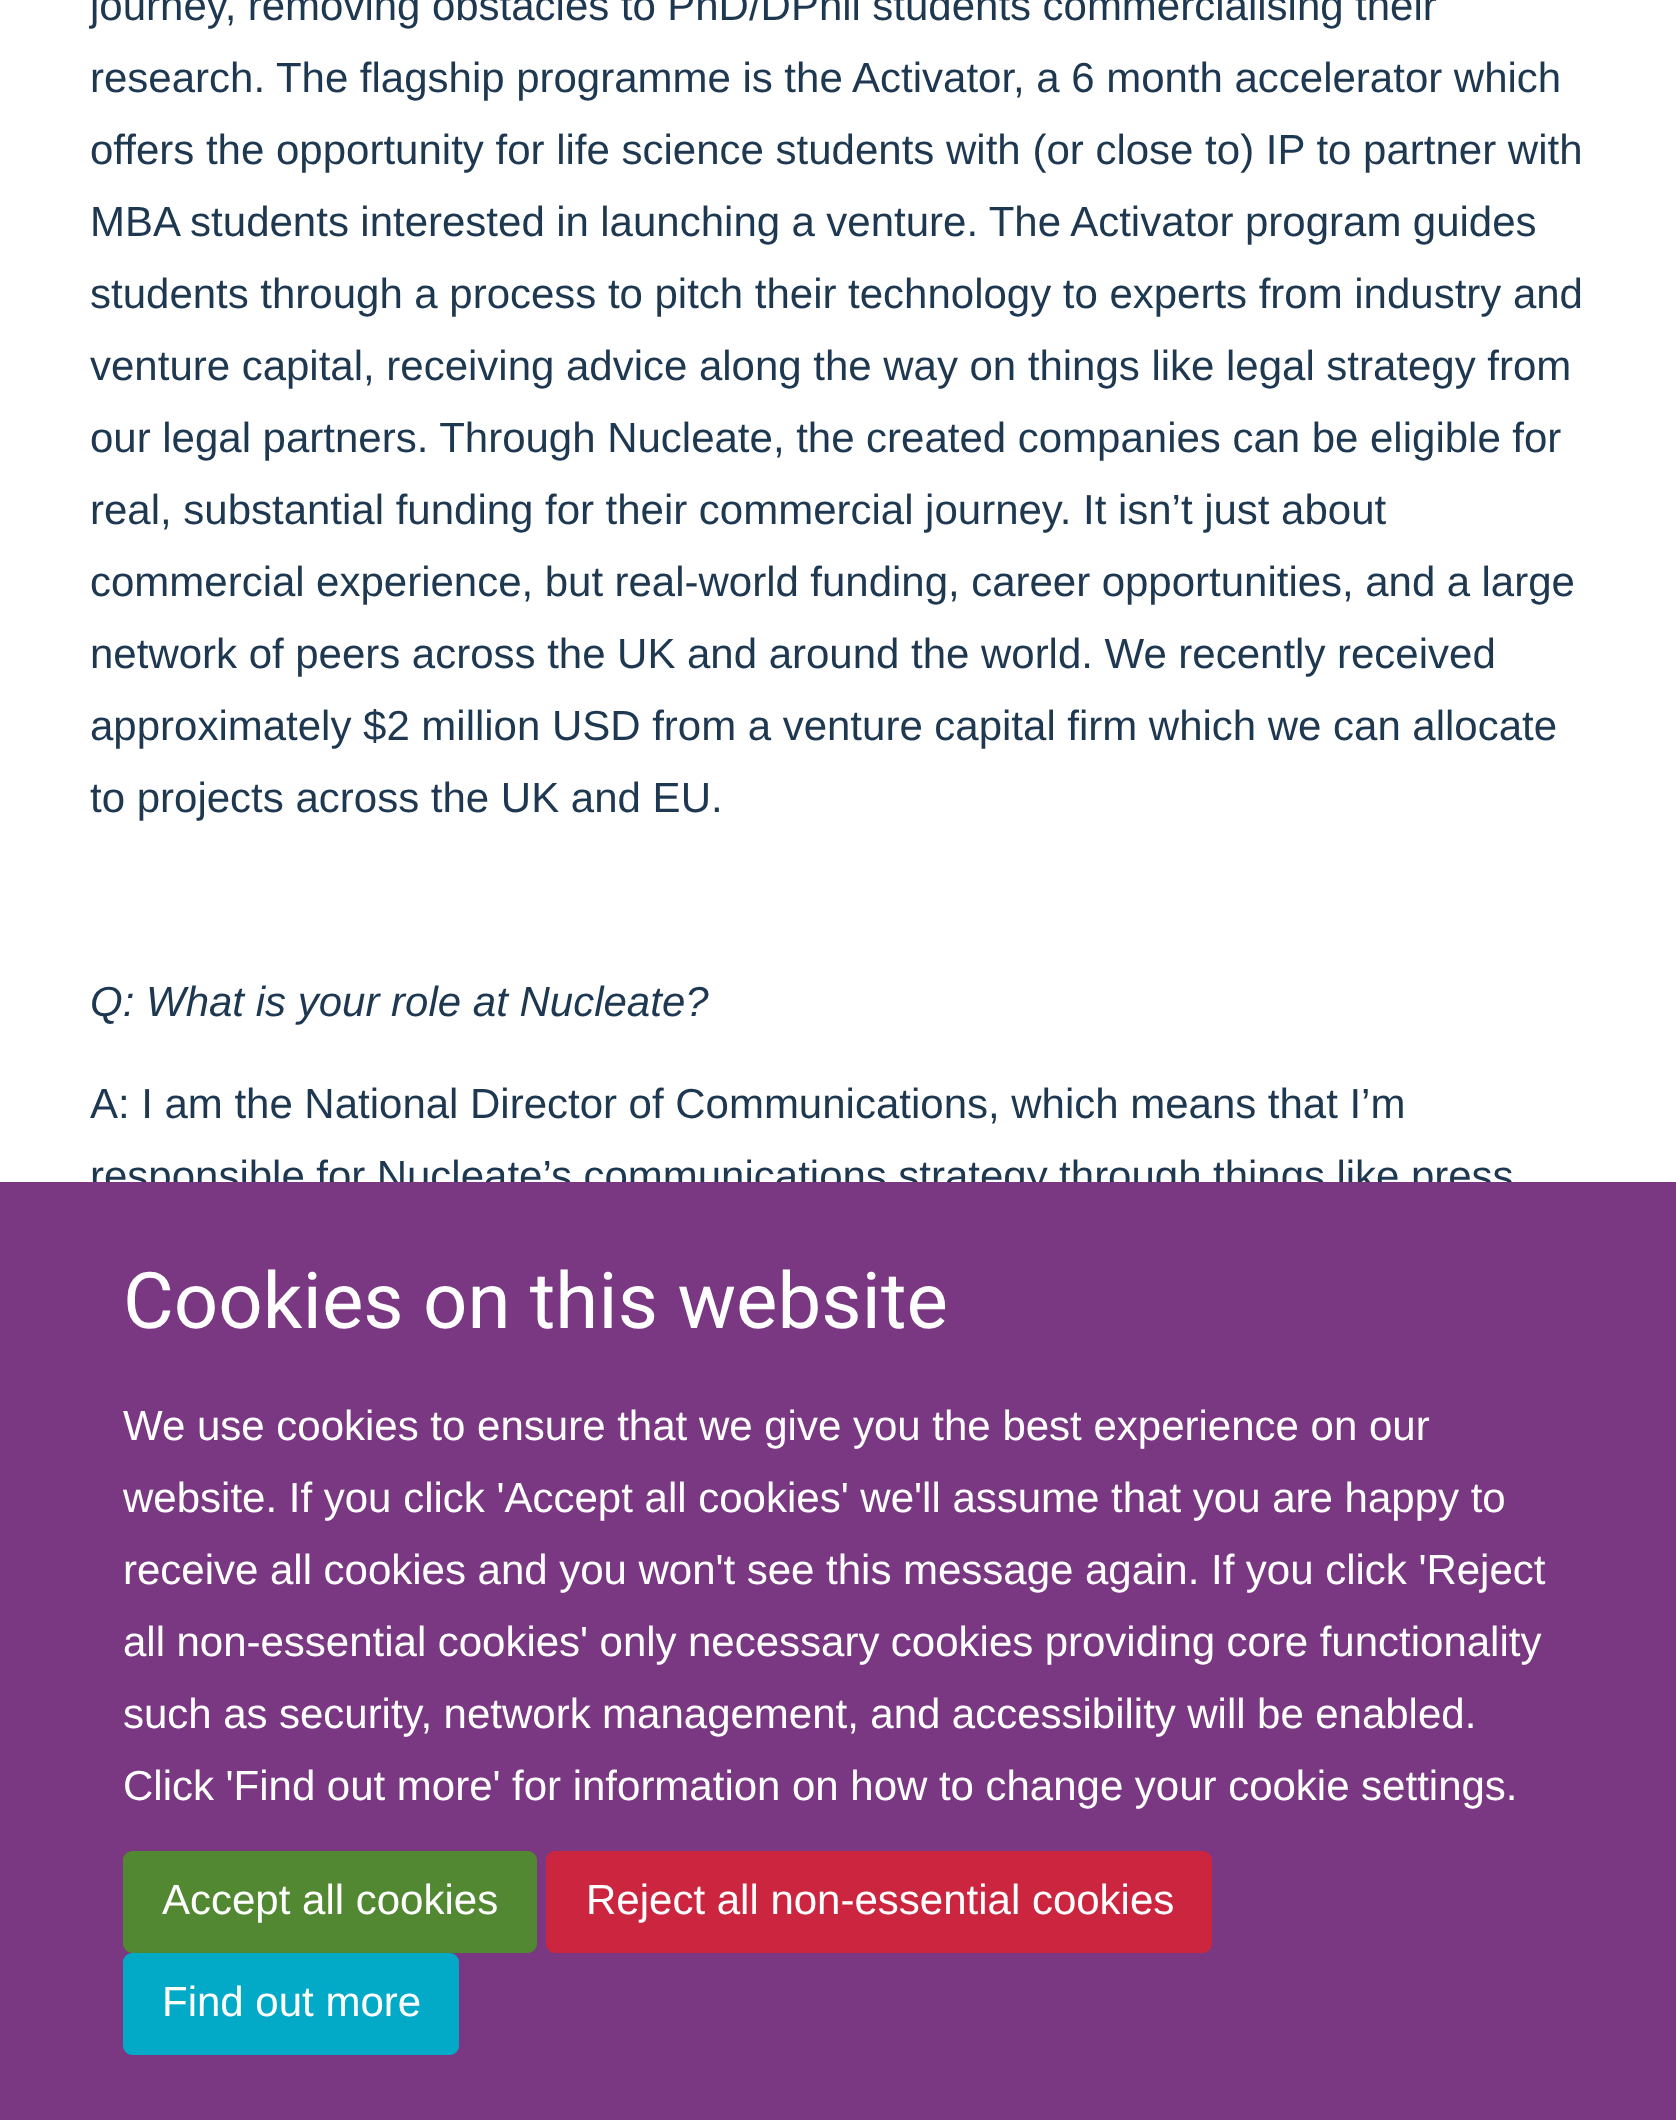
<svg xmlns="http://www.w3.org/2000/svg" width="1676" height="2120">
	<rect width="100%" height="100%" fill="#FFFFFF" />
	<g font-family="Liberation Sans" font-size="42" fill="#1D3850">
		<text x="90" y="20" word-spacing="-0.25">journey, removing obstacles to PhD/DPhil students commercialising their</text>
		<text x="90" y="92" word-spacing="-0.1">research. The flagship programme is the Activator, a 6 month accelerator which</text>
		<text x="90" y="164">offers the opportunity for life science students with (or close to) IP to partner with</text>
		<text x="90" y="236" word-spacing="-0.25">MBA students interested in launching a venture. The Activator program guides</text>
		<text x="90" y="308" word-spacing="-0.1">students through a process to pitch their technology to experts from industry and</text>
		<text x="90" y="380" word-spacing="-0.1">venture capital, receiving advice along the way on things like legal strategy from</text>
		<text x="90" y="452" word-spacing="-0.1">our legal partners. Through Nucleate, the created companies can be eligible for</text>
		<text x="90" y="524" word-spacing="-0.1">real, substantial funding for their commercial journey. It isn’t just about</text>
		<text x="90" y="596" word-spacing="-0.25">commercial experience, but real-world funding, career opportunities, and a large</text>
		<text x="90" y="668" word-spacing="-0.1">network of peers across the UK and around the world. We recently received</text>
		<text x="90" y="740" word-spacing="-0.1">approximately $2 million USD from a venture capital firm which we can allocate</text>
		<text x="90" y="812">to projects across the UK and EU.</text>
	</g>
	<text x="90" y="1016" font-family="Liberation Sans" font-size="42" font-style="italic" fill="#1D3850">Q: What is your role at Nucleate?</text>
	<g font-family="Liberation Sans" font-size="42" fill="#1D3850">
		<text x="90" y="1118" word-spacing="-0.1">A: I am the National Director of Communications, which means that I’m</text>
		<text x="90" y="1190" word-spacing="-0.25">responsible for Nucleate’s communications strategy through things like press</text>
	</g>
	<rect x="0" y="1182" width="1676" height="938" fill="#7A3782" />
	<text x="123" y="1328" font-family="Heebo" font-size="78" fill="#FFFFFF">Cookies on this website</text>
	<g font-family="Liberation Sans" font-size="42" fill="#FFFFFF">
		<text x="123" y="1440">We use cookies to ensure that we give you the best experience on our</text>
		<text x="123" y="1512">website. If you click 'Accept all cookies' we'll assume that you are happy to</text>
		<text x="123" y="1584" word-spacing="-0.1">receive all cookies and you won't see this message again. If you click 'Reject</text>
		<text x="123" y="1656" word-spacing="-0.25">all non-essential cookies' only necessary cookies providing core functionality</text>
		<text x="123" y="1728" word-spacing="-0.25">such as security, network management, and accessibility will be enabled.</text>
		<text x="123" y="1800" word-spacing="-0.1">Click 'Find out more' for information on how to change your cookie settings.</text>
	</g>
	<rect x="124.5" y="1852.5" width="411" height="99" rx="7.5" fill="#518831" stroke="#518831" stroke-width="3" />
	<text x="162" y="1914" font-family="Liberation Sans" font-size="42" fill="#FFFFFF">Accept all cookies</text>
	<rect x="547.5" y="1852.5" width="663" height="99" rx="7.5" fill="#CC253F" stroke="#CC253F" stroke-width="3" />
	<text x="586" y="1914" font-family="Liberation Sans" font-size="42" fill="#FFFFFF">Reject all non-essential cookies</text>
	<rect x="124.5" y="1954.5" width="333" height="99" rx="7.5" fill="#02AAC7" stroke="#02AAC7" stroke-width="3" />
	<text x="162" y="2016" font-family="Liberation Sans" font-size="42" fill="#FFFFFF">Find out more</text>
</svg>
